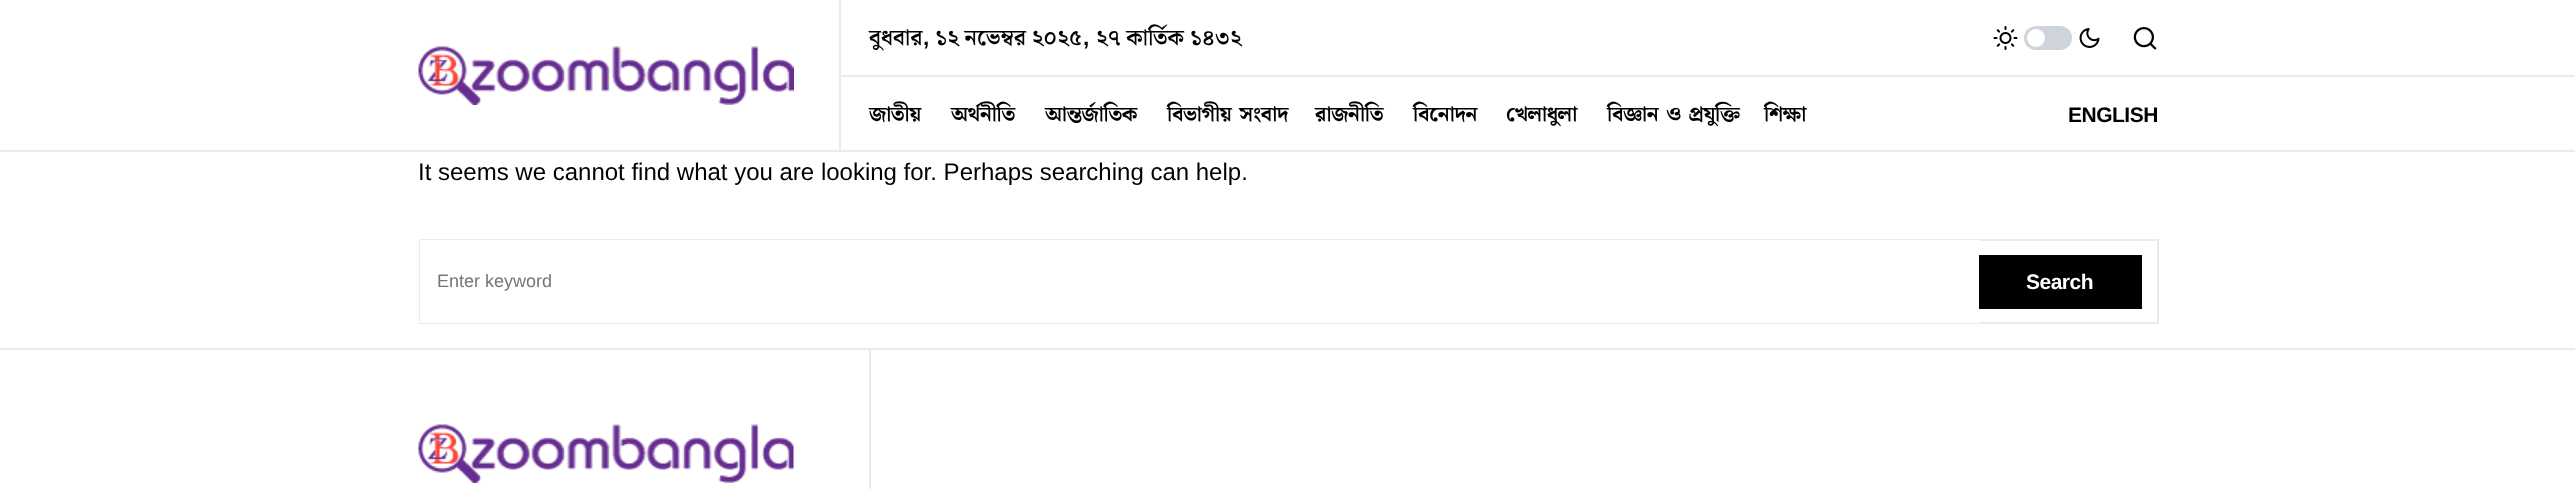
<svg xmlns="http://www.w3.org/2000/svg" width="2575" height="489">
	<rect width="100%" height="100%" fill="#FFFFFF" />
	<rect x="0" y="150" width="2575" height="2" fill="#E9ECEF" />
	<rect x="839" y="0" width="2" height="150" fill="#E9ECEF" />
	<image x="418" y="46" width="376" height="59" href="assets/img1.png" />
	<rect x="840" y="75" width="1735" height="2" fill="#E9ECEF" />
	<text x="869" y="45" font-family="Noto Serif Bengali" font-size="22.5" font-weight="600" fill="#000000">বুধবার</text>
	<text x="923" y="45" font-family="Liberation Sans" font-size="22.5" font-weight="700" fill="#000000">,</text>
	<text x="935" y="45" font-family="Noto Serif Bengali" font-size="22.5" font-weight="600" fill="#000000">১২ নভেম্বর ২০২৫</text>
	<text x="1083" y="45" font-family="Liberation Sans" font-size="22.5" font-weight="700" fill="#000000">,</text>
	<text x="1096" y="45" font-family="Noto Serif Bengali" font-size="22.5" font-weight="600" fill="#000000">২৭ কার্তিক ১৪৩২</text>
	<image x="1993" y="26" width="25" height="24" href="assets/img2.png" />
	<rect x="2024" y="26" width="48" height="24" rx="12" fill="#CED4DA" />
	<circle cx="2036" cy="38" r="9" fill="#FFFFFF" />
	<image x="2079" y="28" width="21" height="20" href="assets/img3.png" />
	<image x="2133" y="27" width="24" height="23" href="assets/img4.png" />
	<g font-family="Noto Serif Bengali" font-size="21" font-weight="700" letter-spacing="-0.5" fill="#000000">
		<text x="869" y="121">জাতীয়</text>
		<text x="951" y="121">অর্থনীতি</text>
		<text x="1045" y="121">আন্তর্জাতিক</text>
		<text x="1167" y="121" word-spacing="3">বিভাগীয় সংবাদ</text>
		<text x="1315" y="121">রাজনীতি</text>
		<text x="1413" y="121">বিনোদন</text>
		<text x="1506" y="121">খেলাধুলা</text>
		<text x="1607" y="121" word-spacing="3">বিজ্ঞান ও প্রযুক্তি</text>
		<text x="1764" y="121">শিক্ষা</text>
	</g>
	<text x="2068" y="122" font-family="Liberation Sans" font-size="21" font-weight="700" letter-spacing="-0.5" fill="#000000">ENGLISH</text>
	<text x="418" y="180" font-family="Liberation Sans" font-size="24" fill="#000000">It seems we cannot find what you are looking for. Perhaps searching can help.</text>
	<rect x="420" y="240" width="1738" height="83" fill="none" stroke="#E9ECEF" stroke-width="2" />
	<rect x="420" y="240" width="1559" height="83" fill="#FFFFFF" />
	<text x="437" y="287" font-family="Liberation Sans" font-size="18" fill="#757575">Enter keyword</text>
	<rect x="1979" y="255" width="163" height="54" fill="#000000" />
	<text x="2026" y="289" font-family="Liberation Sans" font-size="21" font-weight="700" letter-spacing="-0.5" fill="#FFFFFF">Search</text>
	<rect x="0" y="348" width="2575" height="2" fill="#E9ECEF" />
	<image x="418" y="424" width="376" height="59" href="assets/img5.png" />
	<rect x="869" y="350" width="2" height="139" fill="#E9ECEF" />
</svg>
